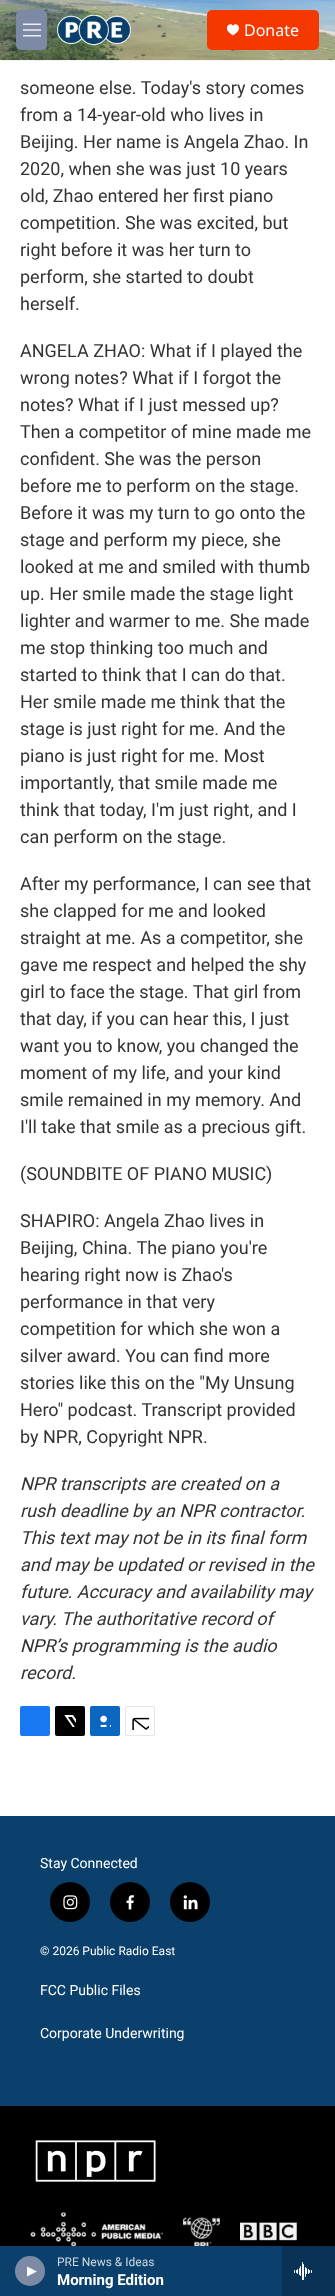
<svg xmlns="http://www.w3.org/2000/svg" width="335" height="2296">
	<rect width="100%" height="100%" fill="#FFFFFF" />
	<rect x="0" y="60" width="335" height="1" fill="#F5F5F5" />
	<image x="0" y="0" width="335" height="60" href="assets/img1.png" />
	<rect x="16" y="10" width="31" height="40" rx="5" fill="#7D8AA6" />
	<image x="23" y="23" width="18" height="14" href="assets/img2.png" />
	<image x="57" y="10" width="74" height="40" href="assets/img3.png" />
	<rect x="207" y="10" width="112" height="40" rx="5" fill="#F53700" />
	<path d="M233 26C231 21 220.5 28 233 35.5C245.5 28 235 21 233 26Z" fill="#FFFFFF" />
	<text x="244" y="36" font-family="Noto Sans" font-size="16" fill="#FFFFFF">Donate</text>
	<rect x="0" y="2246" width="282" height="50" fill="#0A406B" />
	<circle cx="30" cy="2271" r="15" fill="#7D8AA6" />
	<path d="M27 2266.5L37 2271.5L27 2276.5Z" fill="#FFFFFF" />
	<text x="57" y="2266" font-family="Roboto" font-size="12" fill="#CED9E1">PRE News &amp; Ideas</text>
	<text x="57" y="2285" font-family="Roboto" font-size="15" font-weight="700" fill="#FFFFFF">Morning Edition</text>
	<rect x="282" y="2246" width="53" height="50" fill="#083356" />
	<image x="294" y="2262" width="18" height="18" href="assets/img4.png" />
	<g font-family="Roboto" font-size="18" fill="#333333">
		<text x="20" y="94">someone else. Today's story comes</text>
		<text x="20" y="121">from a 14-year-old who lives in</text>
		<text x="20" y="148">Beijing. Her name is Angela Zhao. In</text>
		<text x="20" y="175">2020, when she was just 10 years</text>
		<text x="20" y="202">old, Zhao entered her first piano</text>
		<text x="20" y="229">competition. She was excited, but</text>
		<text x="20" y="256">right before it was her turn to</text>
		<text x="20" y="283">perform, she started to doubt</text>
		<text x="20" y="310">herself.</text>
		<text x="20" y="357">ANGELA ZHAO: What if I played the</text>
		<text x="20" y="384">wrong notes? What if I forgot the</text>
		<text x="20" y="411">notes? What if I just messed up?</text>
		<text x="20" y="438">Then a competitor of mine made me</text>
		<text x="20" y="465">confident. She was the person</text>
		<text x="20" y="492">before me to perform on the stage.</text>
		<text x="20" y="519">Before it was my turn to go onto the</text>
		<text x="20" y="546">stage and perform my piece, she</text>
		<text x="20" y="573">looked at me and smiled with thumb</text>
		<text x="20" y="600">up. Her smile made the stage light</text>
		<text x="20" y="627">lighter and warmer to me. She made</text>
		<text x="20" y="654">me stop thinking too much and</text>
		<text x="20" y="681">started to think that I can do that.</text>
		<text x="20" y="708">Her smile made me think that the</text>
		<text x="20" y="735">stage is just right for me. And the</text>
		<text x="20" y="762">piano is just right for me. Most</text>
		<text x="20" y="789">importantly, that smile made me</text>
		<text x="20" y="816">think that today, I'm just right, and I</text>
		<text x="20" y="843">can perform on the stage.</text>
		<text x="20" y="890">After my performance, I can see that</text>
		<text x="20" y="917">she clapped for me and looked</text>
		<text x="20" y="944">straight at me. As a competitor, she</text>
		<text x="20" y="971">gave me respect and helped the shy</text>
		<text x="20" y="998">girl to face the stage. That girl from</text>
		<text x="20" y="1025">that day, if you can hear this, I just</text>
		<text x="20" y="1052">want you to know, you changed the</text>
		<text x="20" y="1079">moment of my life, and your kind</text>
		<text x="20" y="1106">smile remained in my memory. And</text>
		<text x="20" y="1133">I'll take that smile as a precious gift.</text>
		<text x="20" y="1180">(SOUNDBITE OF PIANO MUSIC)</text>
		<text x="20" y="1227">SHAPIRO: Angela Zhao lives in</text>
		<text x="20" y="1254">Beijing, China. The piano you're</text>
		<text x="20" y="1281">hearing right now is Zhao's</text>
		<text x="20" y="1308">performance in that very</text>
		<text x="20" y="1335">competition for which she won a</text>
		<text x="20" y="1362">silver award. You can find more</text>
		<text x="20" y="1389">stories like this on the "My Unsung</text>
		<text x="20" y="1416">Hero" podcast. Transcript provided</text>
		<text x="20" y="1443">by NPR, Copyright NPR.</text>
	</g>
	<g font-family="Roboto" font-size="18" font-style="italic" fill="#333333">
		<text x="20" y="1490">NPR transcripts are created on a</text>
		<text x="20" y="1517">rush deadline by an NPR contractor.</text>
		<text x="20" y="1544">This text may not be in its final form</text>
		<text x="20" y="1571">and may be updated or revised in the</text>
		<text x="20" y="1598">future. Accuracy and availability may</text>
		<text x="20" y="1625">vary. The authoritative record of</text>
		<text x="20" y="1652">NPR’s programming is the audio</text>
		<text x="20" y="1679">record.</text>
	</g>
	<rect x="20" y="1706" width="30" height="30" rx="2" fill="#1778F2" />
	<rect x="55" y="1706" width="30" height="30" rx="2" fill="#000000" />
	<image x="64" y="1715" width="12" height="12" href="assets/img5.png" />
	<rect x="90" y="1706" width="30" height="30" rx="2" fill="#0A66C1" />
	<image x="100" y="1715" width="11" height="12" href="assets/img6.png" />
	<rect x="125.5" y="1706.5" width="29" height="29" rx="1.5" fill="none" stroke="#E6E6E6" />
	<image x="132" y="1717" width="17" height="13" href="assets/img7.png" />
	<rect x="0" y="1816" width="335" height="290" fill="#0A406B" />
	<text x="40" y="1868" font-family="Roboto" font-size="14" fill="#FFFFFF">Stay Connected</text>
	<circle cx="70" cy="1902" r="20" fill="#000000" />
	<image x="63" y="1895" width="15" height="15" href="assets/img8.png" />
	<circle cx="130" cy="1902" r="20" fill="#000000" />
	<image x="126" y="1895" width="8" height="15" href="assets/img9.png" />
	<circle cx="190" cy="1902" r="20" fill="#000000" />
	<image x="183" y="1895" width="15" height="15" href="assets/img10.png" />
	<text x="40" y="1955" font-family="Roboto" font-size="12" fill="#FFFFFF">© 2026 Public Radio East</text>
	<g font-family="Roboto" font-size="14" fill="#FFFFFF">
		<text x="40" y="1995">FCC Public Files</text>
		<text x="40" y="2038">Corporate Underwriting</text>
	</g>
	<rect x="0" y="2106" width="335" height="140" fill="#000000" />
	<image x="35" y="2140" width="121" height="42" href="assets/img11.png" />
	<image x="30" y="2212" width="133" height="34" href="assets/img12.png" />
	<image x="183" y="2217" width="37" height="29" href="assets/img13.png" />
	<image x="240" y="2222" width="57" height="19" href="assets/img14.png" />
</svg>
